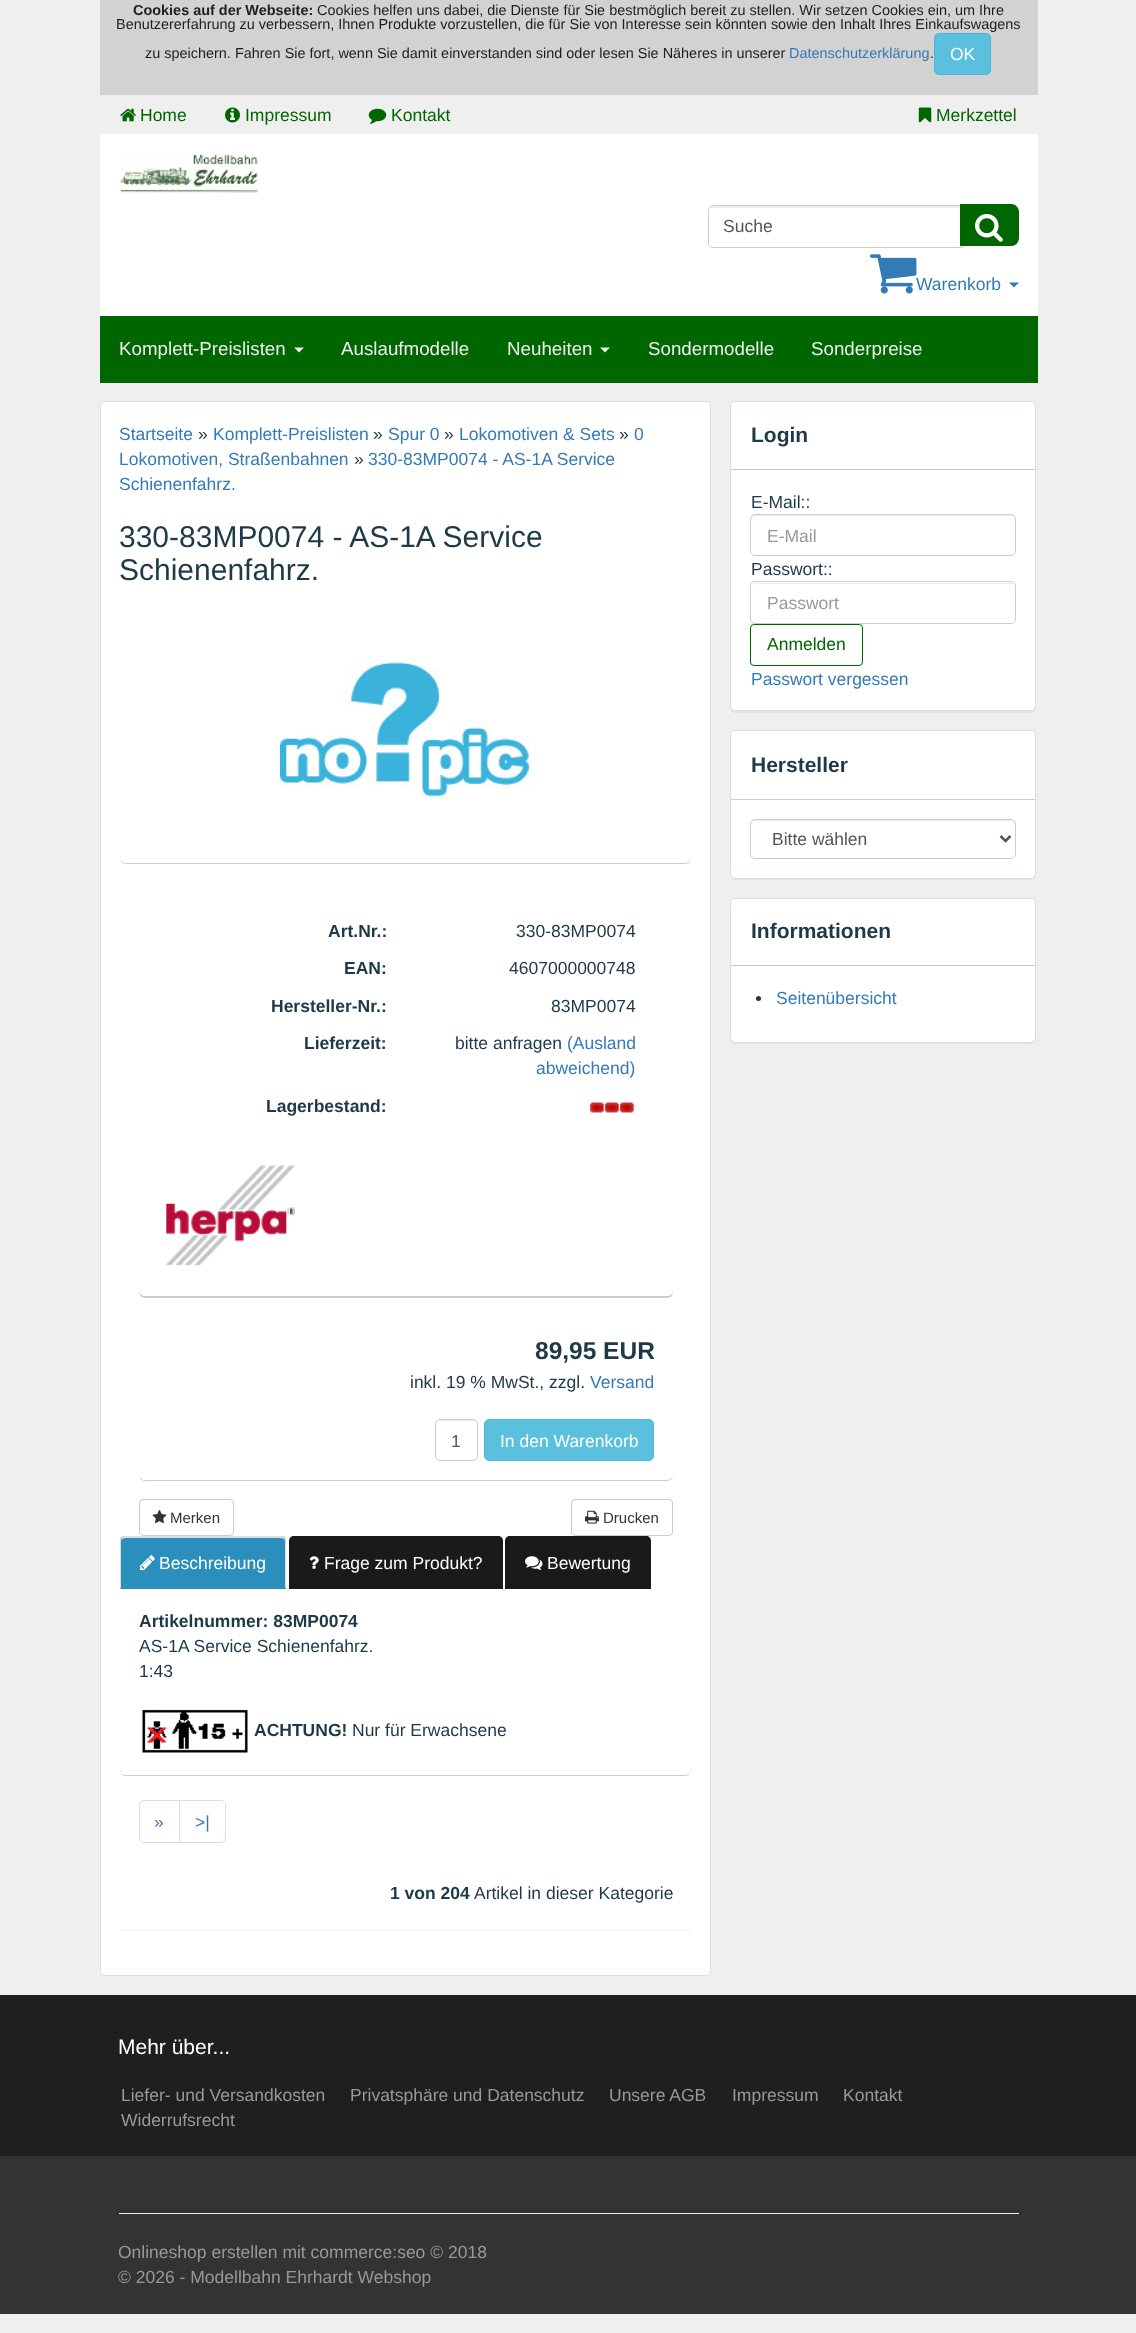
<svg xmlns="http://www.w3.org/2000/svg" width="1136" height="2333">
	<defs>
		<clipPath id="clip1"><path d="M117 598H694V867H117ZM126 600H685C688.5 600 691 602.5 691 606V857C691 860.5 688.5 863 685 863H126C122.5 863 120 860.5 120 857V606C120 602.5 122.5 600 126 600Z" clip-rule="evenodd" /></clipPath>
		<clipPath id="clip2"><path d="M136 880H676V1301H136ZM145 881H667C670.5 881 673 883.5 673 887V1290C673 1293.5 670.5 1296 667 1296H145C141.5 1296 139 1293.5 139 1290V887C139 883.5 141.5 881 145 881Z" clip-rule="evenodd" /></clipPath>
		<clipPath id="clip3"><path d="M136 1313H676V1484H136ZM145 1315H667C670.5 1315 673 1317.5 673 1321V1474C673 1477.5 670.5 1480 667 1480H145C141.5 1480 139 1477.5 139 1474V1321C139 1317.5 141.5 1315 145 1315Z" clip-rule="evenodd" /></clipPath>
	</defs>
	<rect width="100%" height="100%" fill="#EFEFEF" />
	<rect x="100" y="0" width="938" height="95" fill="#D2D2D2" />
	<text x="133" y="15" font-family="Liberation Sans" font-size="14.45" font-weight="700" fill="#1E1E1E">Cookies auf der Webseite:</text>
	<g font-family="Liberation Sans" font-size="14.45" fill="#1E1E1E">
		<text x="317" y="15">Cookies helfen uns dabei, die Dienste für Sie bestmöglich bereit zu stellen. Wir setzen Cookies ein, um Ihre</text>
		<text x="116" y="29">Benutzererfahrung zu verbessern, Ihnen Produkte vorzustellen, die für Sie von Interesse sein könnten sowie den Inhalt Ihres Einkaufswagens</text>
		<text x="145" y="58">zu speichern. Fahren Sie fort, wenn Sie damit einverstanden sind oder lesen Sie Näheres in unserer</text>
	</g>
	<text x="789" y="58" font-family="Liberation Sans" font-size="14.45" fill="#337AB7">Datenschutzerklärung</text>
	<text x="930" y="58" font-family="Liberation Sans" font-size="14.45" fill="#1E1E1E">.</text>
	<rect x="934.5" y="33.5" width="56" height="41" rx="4.5" fill="#5BC0DE" stroke="#46B8DA" />
	<text x="950" y="60" font-family="Liberation Sans" font-size="17.5" fill="#FFFFFF">OK</text>
	<image x="120" y="108" width="16" height="14" href="assets/img1.png" />
	<text x="140" y="121" font-family="Liberation Sans" font-size="17.5" fill="#006600">Home</text>
	<image x="225" y="107" width="15" height="16" href="assets/img2.png" />
	<text x="245" y="121" font-family="Liberation Sans" font-size="17.5" fill="#006600">Impressum</text>
	<image x="368" y="108" width="19" height="16" href="assets/img3.png" />
	<text x="391" y="121" font-family="Liberation Sans" font-size="17.5" fill="#006600">Kontakt</text>
	<image x="918" y="107" width="14" height="16" href="assets/img4.png" />
	<text x="936" y="121" font-family="Liberation Sans" font-size="17.5" fill="#006600">Merkzettel</text>
	<rect x="100" y="134" width="938" height="182" fill="#FFFFFF" />
	<image x="119" y="154" width="139" height="39" href="assets/img5.png" />
	<path d="M712 208H961C963 208 965 209 965 211V210C965 208 963 206 961 206H713C711 206 709 208 709 210V211C709 209 710 208 712 208Z" fill="#ECECEC" />
	<rect x="708.5" y="205.5" width="257" height="42" rx="4.5" fill="none" stroke="#CCCCCC" />
	<text x="723" y="232" font-family="Liberation Sans" font-size="17.5" fill="#555555">Suche</text>
	<path d="M960 204H1011C1015.5 204 1019 207.5 1019 212V238C1019 242.5 1015.5 246 1011 246H960Z" fill="#006600" />
	<image x="975" y="213" width="28" height="29" href="assets/img6.png" />
	<image x="870" y="254" width="47" height="40" href="assets/img7.png" />
	<text x="916" y="290" font-family="Liberation Sans" font-size="17.5" fill="#337AB7">Warenkorb</text>
	<path d="M1009 282.5H1019L1014 287.5Z" fill="#337AB7" />
	<rect x="100" y="316" width="938" height="67" fill="#006600" />
	<text x="119" y="355" font-family="Liberation Sans" font-size="18.75" fill="#EEEEEE">Komplett-Preislisten</text>
	<path d="M294 347.5H304L299 352.5Z" fill="#EEEEEE" />
	<g font-family="Liberation Sans" font-size="18.75" fill="#EEEEEE">
		<text x="341" y="355">Auslaufmodelle</text>
		<text x="507" y="355">Neuheiten</text>
	</g>
	<path d="M600 347.5H610L605 352.5Z" fill="#EFEFEF" />
	<g font-family="Liberation Sans" font-size="18.75" fill="#EEEEEE">
		<text x="648" y="355">Sondermodelle</text>
		<text x="811" y="355">Sonderpreise</text>
	</g>
	<rect x="100.5" y="401.5" width="610" height="1574" rx="4.5" fill="#FFFFFF" stroke="#D3E0E9" />
	<text x="119" y="440" font-family="Liberation Sans" font-size="17.5" fill="#337AB7">Startseite</text>
	<text x="198" y="440" font-family="Liberation Sans" font-size="17.5" fill="#1E3948">»</text>
	<text x="213" y="440" font-family="Liberation Sans" font-size="17.5" fill="#337AB7">Komplett-Preislisten</text>
	<text x="373" y="440" font-family="Liberation Sans" font-size="17.5" fill="#1E3948">»</text>
	<text x="388" y="440" font-family="Liberation Sans" font-size="17.5" fill="#337AB7">Spur 0</text>
	<text x="444" y="440" font-family="Liberation Sans" font-size="17.5" fill="#1E3948">»</text>
	<text x="459" y="440" font-family="Liberation Sans" font-size="17.5" fill="#337AB7">Lokomotiven &amp; Sets</text>
	<text x="619" y="440" font-family="Liberation Sans" font-size="17.5" fill="#1E3948">»</text>
	<g font-family="Liberation Sans" font-size="17.5" fill="#337AB7">
		<text x="634" y="440">0</text>
		<text x="119" y="465">Lokomotiven, Straßenbahnen</text>
	</g>
	<text x="354" y="465" font-family="Liberation Sans" font-size="17.5" fill="#1E3948">»</text>
	<g font-family="Liberation Sans" font-size="17.5" fill="#337AB7">
		<text x="368" y="465">330-83MP0074 - AS-1A Service</text>
		<text x="119" y="490">Schienenfahrz.</text>
	</g>
	<g font-family="Liberation Sans" font-size="30" fill="#1E3948">
		<text x="119" y="547">330-83MP0074 - AS-1A Service</text>
		<text x="119" y="580">Schienenfahrz.</text>
	</g>
	<g clip-path="url(#clip1)">
		<rect x="120" y="601" width="571" height="263" rx="6" fill="#000000" fill-opacity="0.2" filter="blur(0.5px)" />
	</g>
	<image x="280" y="659" width="250" height="140" href="assets/img8.png" />
	<g clip-path="url(#clip2)">
		<rect x="139" y="883" width="534" height="415" rx="6" fill="#000000" fill-opacity="0.2" filter="blur(0.5px)" />
	</g>
	<text x="328" y="937" font-family="Liberation Sans" font-size="17.5" font-weight="700" fill="#1E3948">Art.Nr.:</text>
	<text x="516" y="937" font-family="Liberation Sans" font-size="17.5" fill="#1E3948">330-83MP0074</text>
	<text x="344" y="974" font-family="Liberation Sans" font-size="17.5" font-weight="700" fill="#1E3948">EAN:</text>
	<text x="509" y="974" font-family="Liberation Sans" font-size="17.5" fill="#1E3948">4607000000748</text>
	<text x="271" y="1012" font-family="Liberation Sans" font-size="17.5" font-weight="700" fill="#1E3948">Hersteller-Nr.:</text>
	<text x="551" y="1012" font-family="Liberation Sans" font-size="17.5" fill="#1E3948">83MP0074</text>
	<text x="304" y="1049" font-family="Liberation Sans" font-size="17.5" font-weight="700" fill="#1E3948">Lieferzeit:</text>
	<text x="455" y="1049" font-family="Liberation Sans" font-size="17.5" fill="#1E3948">bitte anfragen</text>
	<g font-family="Liberation Sans" font-size="17.5" fill="#337AB7">
		<text x="567" y="1049">(Ausland</text>
		<text x="536" y="1074">abweichend)</text>
	</g>
	<text x="266" y="1112" font-family="Liberation Sans" font-size="17.5" font-weight="700" fill="#1E3948">Lagerbestand:</text>
	<image x="589" y="1102" width="45" height="11" href="assets/img9.png" />
	<image x="166" y="1165" width="129" height="101" href="assets/img10.png" />
	<g clip-path="url(#clip3)">
		<rect x="139" y="1316" width="534" height="165" rx="6" fill="#000000" fill-opacity="0.2" filter="blur(0.5px)" />
	</g>
	<text x="535" y="1359" font-family="Liberation Sans" font-size="24.5" font-weight="700" fill="#1E3948">89,95 EUR</text>
	<text x="410" y="1388" font-family="Liberation Sans" font-size="17.5" fill="#1E3948">inkl. 19 % MwSt., zzgl.</text>
	<text x="590" y="1388" font-family="Liberation Sans" font-size="17.5" fill="#337AB7">Versand</text>
	<path d="M440 1421H472C475 1421 476 1423 476 1425C476 1419 471 1420 467 1420H445C441 1420 436 1419 436 1425C436 1423 438 1421 440 1421Z" fill="#ECECEC" />
	<rect x="435.5" y="1419.5" width="42" height="41" rx="4.5" fill="none" stroke="#CCCCCC" />
	<text x="451" y="1447" font-family="Liberation Sans" font-size="17.5" fill="#555555">1</text>
	<rect x="484.5" y="1419.5" width="169" height="41" rx="4.5" fill="#5BC0DE" stroke="#46B8DA" />
	<text x="500" y="1447" font-family="Liberation Sans" font-size="17.5" fill="#FFFFFF">In den Warenkorb</text>
	<rect x="139.5" y="1499.5" width="94" height="36" rx="3.5" fill="none" stroke="#CCCCCC" />
	<image x="152" y="1510" width="15" height="14" href="assets/img11.png" />
	<text x="170" y="1523" font-family="Liberation Sans" font-size="15" fill="#333333">Merken</text>
	<rect x="571.5" y="1499.5" width="101" height="36" rx="3.5" fill="none" stroke="#CCCCCC" />
	<image x="585" y="1510" width="14" height="14" href="assets/img12.png" />
	<text x="603" y="1523" font-family="Liberation Sans" font-size="15" fill="#333333">Drucken</text>
	<rect x="120" y="1589" width="571" height="187" rx="6" fill="#000000" fill-opacity="0.2" filter="blur(0.5px)" />
	<rect x="120.5" y="1588.5" width="570" height="186" rx="5.5" fill="none" stroke="#FFFFFF" />
	<path d="M125 1536H281C284 1536 286 1538 286 1541V1589H120V1541C120 1538 122 1536 125 1536Z" fill="#2A8FBD" />
	<path d="M125 1538L122 1539L121 1538L123 1536H283L285 1538L284 1539L281 1538Z" fill="#DDDDDD" />
	<path d="M285 1538C286 1538 286 1540 286 1541V1588H285V1540L284 1539Z" fill="#DDDDDD" />
	<path d="M120 1589L121 1588V1540L122 1539L121 1538C120 1538 120 1540 120 1541Z" fill="#DDDDDD" />
	<image x="140" y="1555" width="15" height="15" href="assets/img13.png" />
	<text x="159" y="1569" font-family="Liberation Sans" font-size="17.5" fill="#FFFFFF">Beschreibung</text>
	<path d="M294 1536H498C501 1536 503 1538 503 1541V1589H289V1541C289 1538 291 1536 294 1536Z" fill="#1A1A1A" />
	<image x="309" y="1556" width="10" height="13" href="assets/img14.png" />
	<text x="324" y="1569" font-family="Liberation Sans" font-size="17.5" fill="#FFFFFF">Frage zum Produkt?</text>
	<path d="M510 1536H646C649 1536 651 1538 651 1541V1589H505V1541C505 1538 507 1536 510 1536Z" fill="#1A1A1A" />
	<image x="525" y="1556" width="18" height="14" href="assets/img15.png" />
	<text x="547" y="1569" font-family="Liberation Sans" font-size="17.5" fill="#FFFFFF">Bewertung</text>
	<rect x="121" y="1589" width="569" height="185" fill="#FFFFFF" />
	<text x="139" y="1627" font-family="Liberation Sans" font-size="17.5" font-weight="700" fill="#1E3948">Artikelnummer: 83MP0074</text>
	<g font-family="Liberation Sans" font-size="17.5" fill="#1E3948">
		<text x="139" y="1652">AS-1A Service Schienenfahrz.</text>
		<text x="139" y="1677">1:43</text>
	</g>
	<image x="142" y="1709" width="106" height="44" href="assets/img16.png" />
	<text x="254" y="1736" font-family="Liberation Sans" font-size="17.5" font-weight="700" fill="#1E3948">ACHTUNG!</text>
	<text x="352" y="1736" font-family="Liberation Sans" font-size="17.5" fill="#1E3948">Nur für Erwachsene</text>
	<path d="M144 1800.5H179.5V1842.5H144C141.5 1842.5 139.5 1840.5 139.5 1838V1805C139.5 1802.5 141.5 1800.5 144 1800.5Z" fill="none" stroke="#DDDDDD" />
	<text x="154" y="1828" font-family="Liberation Sans" font-size="17.5" fill="#337AB7">»</text>
	<path d="M179.5 1800.5H221C223.5 1800.5 225.5 1802.5 225.5 1805V1838C225.5 1840.5 223.5 1842.5 221 1842.5H179.5Z" fill="#FFFFFF" stroke="#DDDDDD" />
	<text x="195" y="1828" font-family="Liberation Sans" font-size="17.5" fill="#337AB7">&gt;|</text>
	<text x="390" y="1899" font-family="Liberation Sans" font-size="17.5" font-weight="700" fill="#1E3948">1 von 204</text>
	<text x="474" y="1899" font-family="Liberation Sans" font-size="17.5" fill="#1E3948">Artikel in dieser Kategorie</text>
	<rect x="120" y="1930" width="571" height="1" fill="#EEEEEE" />
	<rect x="730" y="403" width="306" height="310" rx="5" fill="#000000" fill-opacity="0.05" filter="blur(0.5px)" />
	<rect x="730.5" y="401.5" width="305" height="309" rx="4.5" fill="#FFFFFF" stroke="#D3E0E9" />
	<rect x="731" y="469" width="304" height="1" fill="#CCCCCC" />
	<text x="751" y="442" font-family="Liberation Sans" font-size="21" font-weight="700" fill="#1E3948">Login</text>
	<text x="751" y="508" font-family="Liberation Sans" font-size="17.5" fill="#1E3948">E-Mail::</text>
	<path d="M755 516H1011C1013 516 1015 518 1015 520V519C1015 517 1013 515 1011 515H755C753 515 751 517 751 519V520C751 518 753 516 755 516Z" fill="#ECECEC" />
	<rect x="750.5" y="514.5" width="265" height="41" rx="4.5" fill="none" stroke="#CCCCCC" />
	<text x="767" y="542" font-family="Liberation Sans" font-size="17.5" fill="#999999">E-Mail</text>
	<text x="751" y="575" font-family="Liberation Sans" font-size="17.5" fill="#1E3948">Passwort::</text>
	<path d="M755 584H1011C1013 584 1015 585 1015 588V587C1015 585 1013 583 1011 583H755C753 583 751 585 751 587V588C751 585 753 584 755 584Z" fill="#ECECEC" />
	<rect x="750.5" y="581.5" width="265" height="42" rx="4.5" fill="none" stroke="#CCCCCC" />
	<text x="767" y="609" font-family="Liberation Sans" font-size="17.5" fill="#999999">Passwort</text>
	<rect x="750.5" y="624.5" width="112" height="41" rx="3.5" fill="none" stroke="#006600" />
	<text x="767" y="650" font-family="Liberation Sans" font-size="17.5" fill="#006600">Anmelden</text>
	<text x="751" y="685" font-family="Liberation Sans" font-size="17.5" fill="#337AB7">Passwort vergessen</text>
	<rect x="730" y="731" width="306" height="149" rx="5" fill="#000000" fill-opacity="0.05" filter="blur(0.5px)" />
	<rect x="730.5" y="730.5" width="305" height="148" rx="4.5" fill="#FFFFFF" stroke="#D3E0E9" />
	<rect x="731" y="799" width="304" height="1" fill="#CCCCCC" />
	<text x="751" y="772" font-family="Liberation Sans" font-size="21" font-weight="700" fill="#1E3948">Hersteller</text>
	<path d="M755 821H1011C1013 821 1015 823 1015 825V824C1015 822 1013 820 1011 820H755C753 820 751 822 751 824V825C751 823 753 821 755 821Z" fill="#ECECEC" />
	<rect x="750.5" y="819.5" width="265" height="39" rx="4.5" fill="none" stroke="#CCCCCC" />
	<path d="M1000.5 836L1005.5 841L1010.5 836" fill="none" stroke="#555555" stroke-width="2.5" />
	<text x="772" y="845" font-family="Liberation Sans" font-size="17.5" fill="#555555">Bitte wählen</text>
	<rect x="730" y="899" width="306" height="145" rx="5" fill="#000000" fill-opacity="0.05" filter="blur(0.5px)" />
	<rect x="730.5" y="898.5" width="305" height="144" rx="4.5" fill="#FFFFFF" stroke="#D3E0E9" />
	<rect x="731" y="965" width="304" height="1" fill="#CCCCCC" />
	<text x="751" y="938" font-family="Liberation Sans" font-size="21" font-weight="700" fill="#1E3948">Informationen</text>
	<circle cx="758.5" cy="998.5" r="2.5" fill="#1E3948" />
	<text x="776" y="1004" font-family="Liberation Sans" font-size="17.5" fill="#337AB7">Seitenübersicht</text>
	<rect x="0" y="1995" width="1136" height="161" fill="#1F1F1F" />
	<text x="118" y="2054" font-family="Liberation Sans" font-size="21" fill="#FFFFFF">Mehr über...</text>
	<g font-family="Liberation Sans" font-size="17.5" fill="#999999">
		<text x="121" y="2101">Liefer- und Versandkosten</text>
		<text x="350" y="2101">Privatsphäre und Datenschutz</text>
		<text x="609" y="2101">Unsere AGB</text>
		<text x="732" y="2101">Impressum</text>
		<text x="843" y="2101">Kontakt</text>
		<text x="121" y="2126">Widerrufsrecht</text>
	</g>
	<rect x="0" y="2156" width="1136" height="158" fill="#333333" />
	<rect x="119" y="2213" width="900" height="1" fill="#EEEEEE" />
	<g font-family="Liberation Sans" font-size="17.5" fill="#999999">
		<text x="118" y="2258">Onlineshop erstellen mit commerce:seo © 2018</text>
		<text x="118" y="2283">© 2026 - Modellbahn Ehrhardt Webshop</text>
	</g>
</svg>
